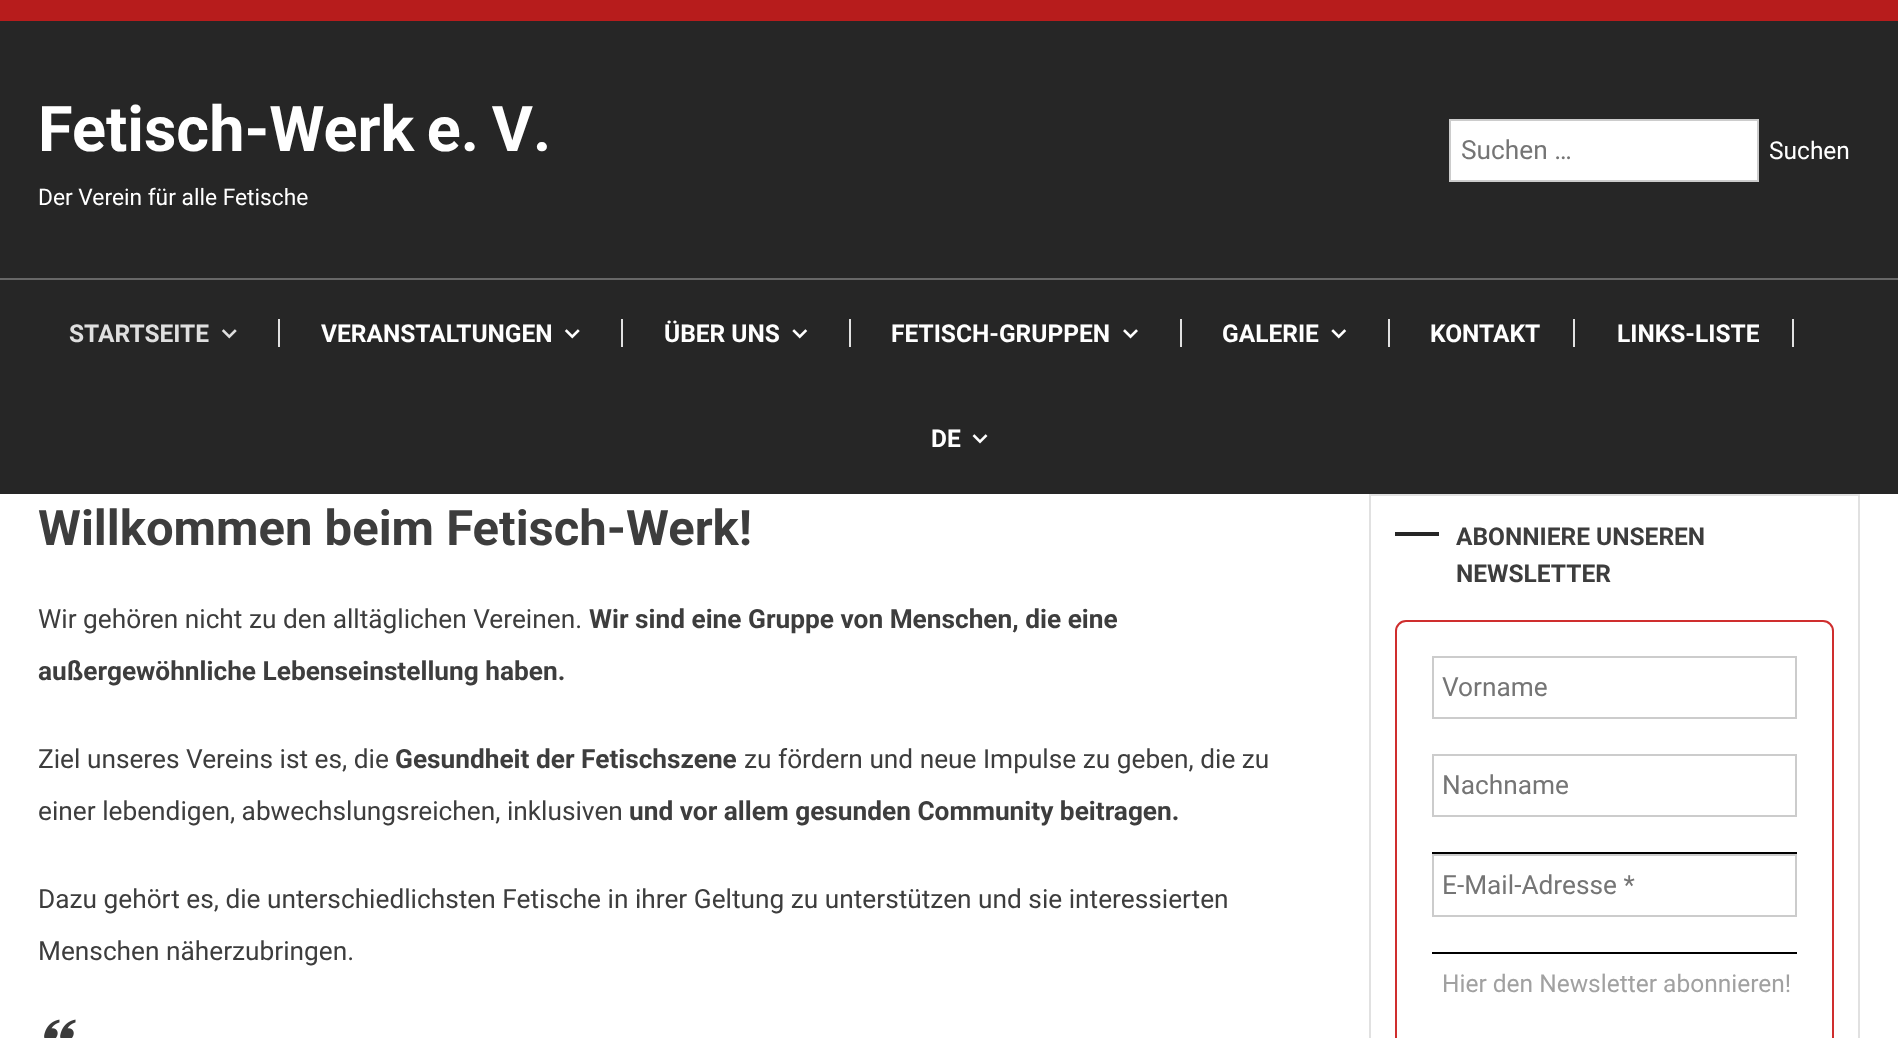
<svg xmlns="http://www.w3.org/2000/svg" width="1898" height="1038">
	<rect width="100%" height="100%" fill="#FFFFFF" />
	<rect x="0" y="0" width="1898" height="21" fill="#B71C1C" />
	<rect x="0" y="21" width="1898" height="473" fill="#262626" />
	<text x="38" y="151" word-spacing="-3" font-family="Roboto" font-size="63" font-weight="700" fill="#FFFFFF">Fetisch-Werk e. V.</text>
	<text x="38" y="205" font-family="Roboto" font-size="22.75" fill="#FFFFFF">Der Verein für alle Fetische</text>
	<rect x="1450" y="120" width="308" height="61" fill="#FFFFFF" stroke="#CCCCCC" stroke-width="2" />
	<text x="1461" y="159" font-family="Roboto" font-size="26.25" fill="#757575">Suchen …</text>
	<text x="1769" y="159" font-family="Roboto" font-size="24.5" fill="#FFFFFF">Suchen</text>
	<rect x="0" y="278" width="1898" height="2" fill="#676767" />
	<text x="69" y="342" font-family="Roboto" font-size="24.5" font-weight="700" fill="#DFDFDF">STARTSEITE</text>
	<image x="221" y="329" width="16" height="10" href="assets/img1.png" />
	<rect x="278" y="319" width="2" height="28" fill="#E1E1E1" />
	<text x="321" y="342" font-family="Roboto" font-size="24.5" font-weight="700" fill="#FFFFFF">VERANSTALTUNGEN</text>
	<image x="564" y="329" width="16" height="10" href="assets/img2.png" />
	<rect x="621" y="319" width="2" height="28" fill="#E1E1E1" />
	<text x="664" y="342" font-family="Roboto" font-size="24.5" font-weight="700" fill="#FFFFFF">ÜBER UNS</text>
	<image x="792" y="329" width="16" height="10" href="assets/img3.png" />
	<rect x="849" y="319" width="2" height="28" fill="#E1E1E1" />
	<text x="891" y="342" font-family="Roboto" font-size="24.5" font-weight="700" fill="#FFFFFF">FETISCH-GRUPPEN</text>
	<image x="1123" y="329" width="15" height="10" href="assets/img4.png" />
	<rect x="1180" y="319" width="2" height="28" fill="#E1E1E1" />
	<text x="1222" y="342" font-family="Roboto" font-size="24.5" font-weight="700" fill="#FFFFFF">GALERIE</text>
	<image x="1331" y="329" width="16" height="10" href="assets/img3.png" />
	<rect x="1388" y="319" width="2" height="28" fill="#E1E1E1" />
	<text x="1430" y="342" font-family="Roboto" font-size="24.5" font-weight="700" fill="#FFFFFF">KONTAKT</text>
	<rect x="1573" y="319" width="2" height="28" fill="#E1E1E1" />
	<text x="1617" y="342" font-family="Roboto" font-size="24.5" font-weight="700" fill="#FFFFFF">LINKS-LISTE</text>
	<rect x="1792" y="319" width="2" height="28" fill="#E1E1E1" />
	<text x="931" y="447" font-family="Roboto" font-size="24.5" font-weight="700" fill="#FFFFFF">DE</text>
	<image x="972" y="434" width="16" height="10" href="assets/img5.png" />
	<text x="38" y="545" font-family="Roboto" font-size="49" font-weight="700" fill="#3D3D3D">Willkommen beim Fetisch-Werk!</text>
	<text x="38" y="628" font-family="Roboto" font-size="26.25" fill="#3D3D3D">Wir gehören nicht zu den alltäglichen Vereinen.</text>
	<g font-family="Roboto" font-size="26.25" font-weight="700" fill="#3D3D3D">
		<text x="589" y="628">Wir sind eine Gruppe von Menschen, die eine</text>
		<text x="38" y="680">außergewöhnliche Lebenseinstellung haben.</text>
	</g>
	<text x="38" y="768" font-family="Roboto" font-size="26.25" fill="#3D3D3D">Ziel unseres Vereins ist es, die</text>
	<text x="395" y="768" font-family="Roboto" font-size="26.25" font-weight="700" fill="#3D3D3D">Gesundheit der Fetischszene</text>
	<g font-family="Roboto" font-size="26.25" fill="#3D3D3D">
		<text x="744" y="768">zu fördern und neue Impulse zu geben, die zu</text>
		<text x="38" y="820">einer lebendigen, abwechslungsreichen, inklusiven</text>
	</g>
	<text x="629" y="820" font-family="Roboto" font-size="26.25" font-weight="700" fill="#3D3D3D">und vor allem gesunden Community beitragen.</text>
	<g font-family="Roboto" font-size="26.25" fill="#3D3D3D">
		<text x="38" y="908">Dazu gehört es, die unterschiedlichsten Fetische in ihrer Geltung zu unterstützen und sie interessierten</text>
		<text x="38" y="960">Menschen näherzubringen.</text>
	</g>
	<image x="44" y="1019" width="32" height="19" href="assets/img6.png" />
	<rect x="1370" y="495" width="489" height="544" fill="none" stroke="#E1E1E1" stroke-width="2" />
	<rect x="1395" y="532" width="44" height="4" fill="#262626" />
	<g font-family="Roboto" font-size="24.5" font-weight="700" fill="#3D3D3D">
		<text x="1456" y="545">ABONNIERE UNSEREN</text>
		<text x="1456" y="582">NEWSLETTER</text>
	</g>
	<rect x="1396" y="621" width="437" height="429" rx="10" fill="none" stroke="#CF2E2E" stroke-width="2" />
	<rect x="1433" y="657" width="363" height="61" fill="none" stroke="#CCCCCC" stroke-width="2" />
	<text x="1442" y="696" font-family="Roboto" font-size="26.25" fill="#757575">Vorname</text>
	<rect x="1433" y="755" width="363" height="61" fill="none" stroke="#CCCCCC" stroke-width="2" />
	<text x="1442" y="794" font-family="Roboto" font-size="26.25" fill="#757575">Nachname</text>
	<rect x="1432" y="852" width="365" height="2" fill="#000000" />
	<rect x="1433" y="855" width="363" height="61" fill="none" stroke="#CCCCCC" stroke-width="2" />
	<text x="1442" y="894" font-family="Roboto" font-size="26.25" fill="#757575">E-Mail-Adresse *</text>
	<rect x="1432" y="952" width="365" height="2" fill="#000000" />
	<text x="1442" y="992" font-family="Roboto" font-size="24.5" fill="#A1A1A1">Hier den Newsletter abonnieren!</text>
</svg>
